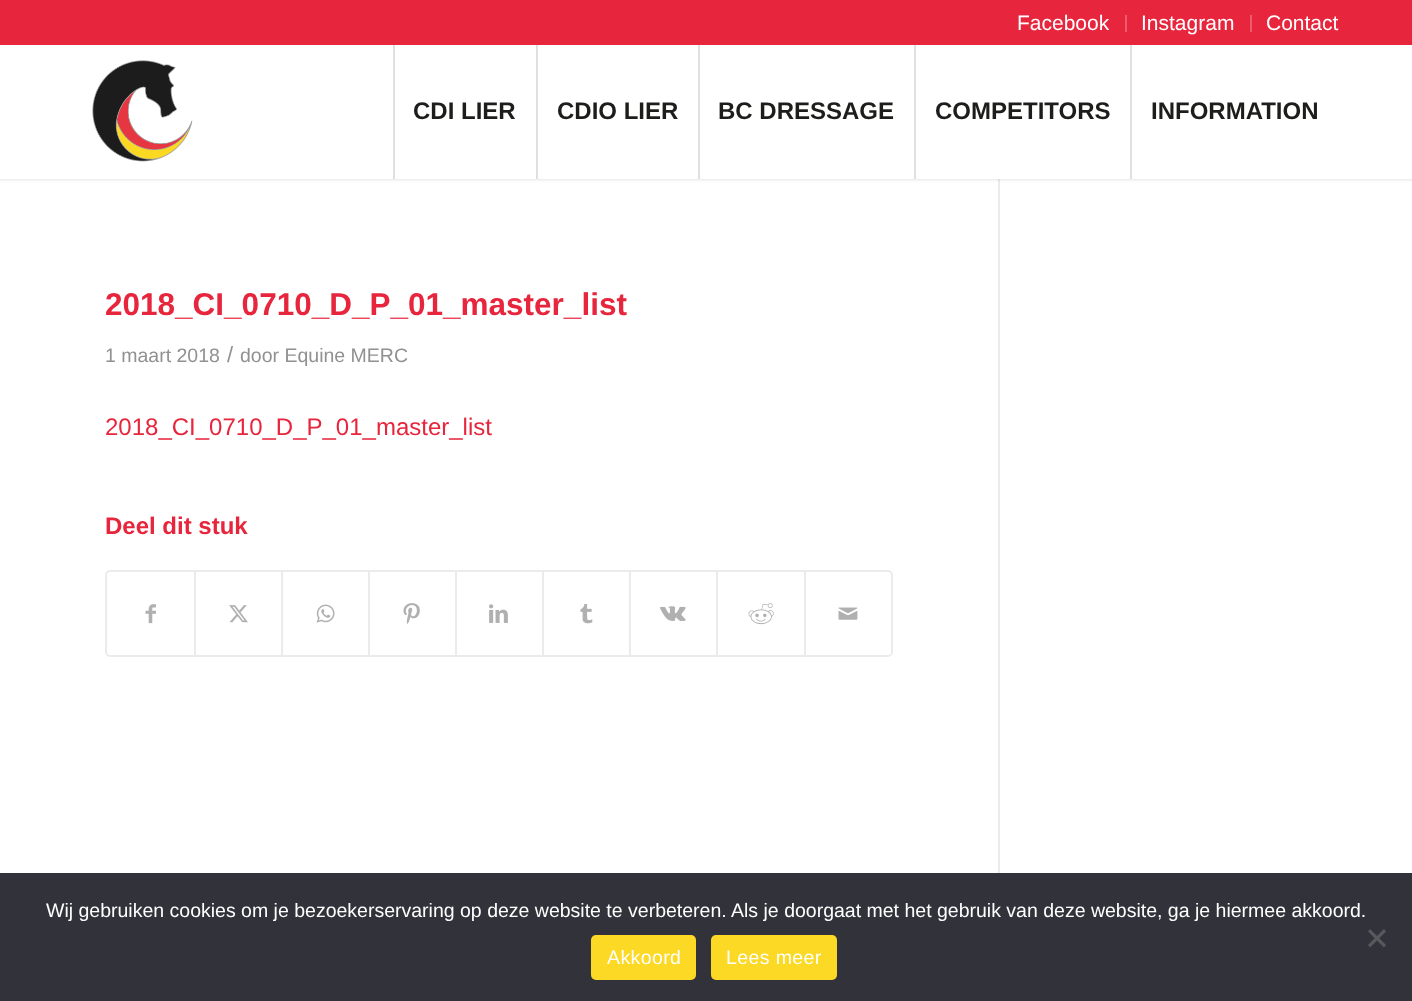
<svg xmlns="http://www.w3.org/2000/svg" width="1412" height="1001">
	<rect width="100%" height="100%" fill="#FFFFFF" />
	<rect x="998" y="179" width="2" height="694" fill="#EBEBEB" />
	<rect x="-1" y="-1" width="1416" height="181" fill="#000000" fill-opacity="0.1" filter="blur(1.5px)" />
	<rect x="0" y="45" width="1412" height="134" fill="#FFFFFF" />
	<rect x="393" y="44" width="2" height="135" fill="#E0E0E0" />
	<rect x="536" y="44" width="2" height="135" fill="#E0E0E0" />
	<rect x="698" y="44" width="2" height="135" fill="#E0E0E0" />
	<rect x="914" y="44" width="2" height="135" fill="#E0E0E0" />
	<rect x="1130" y="44" width="2" height="135" fill="#E0E0E0" />
	<rect x="0" y="0" width="1412" height="45" fill="#E7253C" />
	<rect x="1125" y="15" width="2" height="17" fill="#ED5C6D" />
	<text x="1017" y="30" font-family="Liberation Sans" font-size="21" fill="#FFFFFF">Facebook</text>
	<rect x="1250" y="15" width="2" height="17" fill="#ED5C6D" />
	<g font-family="Liberation Sans" font-size="21" fill="#FFFFFF">
		<text x="1141" y="30">Instagram</text>
		<text x="1266" y="30">Contact</text>
	</g>
	<image x="92" y="60" width="101" height="102" href="assets/img1.png" />
	<g font-family="Liberation Sans" font-size="24" font-weight="700" fill="#1D1D1B">
		<text x="413" y="119">CDI LIER</text>
		<text x="557" y="119">CDIO LIER</text>
		<text x="718" y="119">BC DRESSAGE</text>
		<text x="935" y="119">COMPETITORS</text>
		<text x="1151" y="119">INFORMATION</text>
	</g>
	<text x="105" y="315" font-family="Liberation Sans" font-size="31.5" font-weight="700" fill="#E7253C">2018_CI_0710_D_P_01_master_list</text>
	<text x="105" y="362" font-family="Liberation Sans" font-size="19.5" fill="#919191">1 maart 2018</text>
	<text x="227" y="362" font-family="Liberation Sans" font-size="22" fill="#919191">/</text>
	<text x="240" y="362" font-family="Liberation Sans" font-size="19.5" fill="#919191">door Equine MERC</text>
	<text x="105" y="435" font-family="Liberation Sans" font-size="24" fill="#E7253C">2018_CI_0710_D_P_01_master_list</text>
	<text x="105" y="534" font-family="Liberation Sans" font-size="24" font-weight="700" fill="#E7253C">Deel dit stuk</text>
	<rect x="106" y="571" width="786" height="85" rx="4" fill="none" stroke="#EBEBEB" stroke-width="2" />
	<image x="145" y="604" width="11" height="20" href="assets/img2.png" />
	<rect x="194" y="572" width="2" height="84" fill="#EBEBEB" />
	<image x="229" y="605" width="19" height="18" href="assets/img3.png" />
	<rect x="281" y="572" width="2" height="84" fill="#EBEBEB" />
	<image x="316" y="604" width="19" height="19" href="assets/img4.png" />
	<rect x="368" y="572" width="2" height="84" fill="#EBEBEB" />
	<image x="403" y="603" width="17" height="21" href="assets/img5.png" />
	<rect x="455" y="572" width="2" height="84" fill="#EBEBEB" />
	<image x="489" y="604" width="19" height="19" href="assets/img6.png" />
	<rect x="542" y="572" width="2" height="84" fill="#EBEBEB" />
	<image x="580" y="604" width="13" height="20" href="assets/img7.png" />
	<rect x="629" y="572" width="2" height="84" fill="#EBEBEB" />
	<image x="660" y="606" width="26" height="15" href="assets/img8.png" />
	<rect x="716" y="572" width="2" height="84" fill="#EBEBEB" />
	<image x="748" y="603" width="26" height="22" href="assets/img9.png" />
	<rect x="804" y="572" width="2" height="84" fill="#EBEBEB" />
	<image x="838" y="607" width="20" height="13" href="assets/img10.png" />
	<rect x="0" y="873" width="1412" height="128" fill="#32323A" />
	<text x="46" y="917" font-family="Liberation Sans" font-size="19.5" fill="#FFFFFF">Wij gebruiken cookies om je bezoekerservaring op deze website te verbeteren. Als je doorgaat met het gebruik van deze website, ga je hiermee akkoord.</text>
	<path d="M1384 929L1386 931.5L1370 947.5L1368 945Z" fill="#59595D" />
	<path d="M1368 931.5L1370 929L1386 945L1384 947.5Z" fill="#59595D" />
	<rect x="591" y="935" width="105" height="45" rx="5" fill="#FCD924" />
	<text x="607" y="964" font-family="Liberation Sans" font-size="19.5" letter-spacing="0.4" fill="#FFFFFF">Akkoord</text>
	<rect x="711" y="935" width="126" height="45" rx="5" fill="#FCD924" />
	<text x="726" y="964" font-family="Liberation Sans" font-size="19.5" letter-spacing="0.4" fill="#FFFFFF">Lees meer</text>
</svg>
